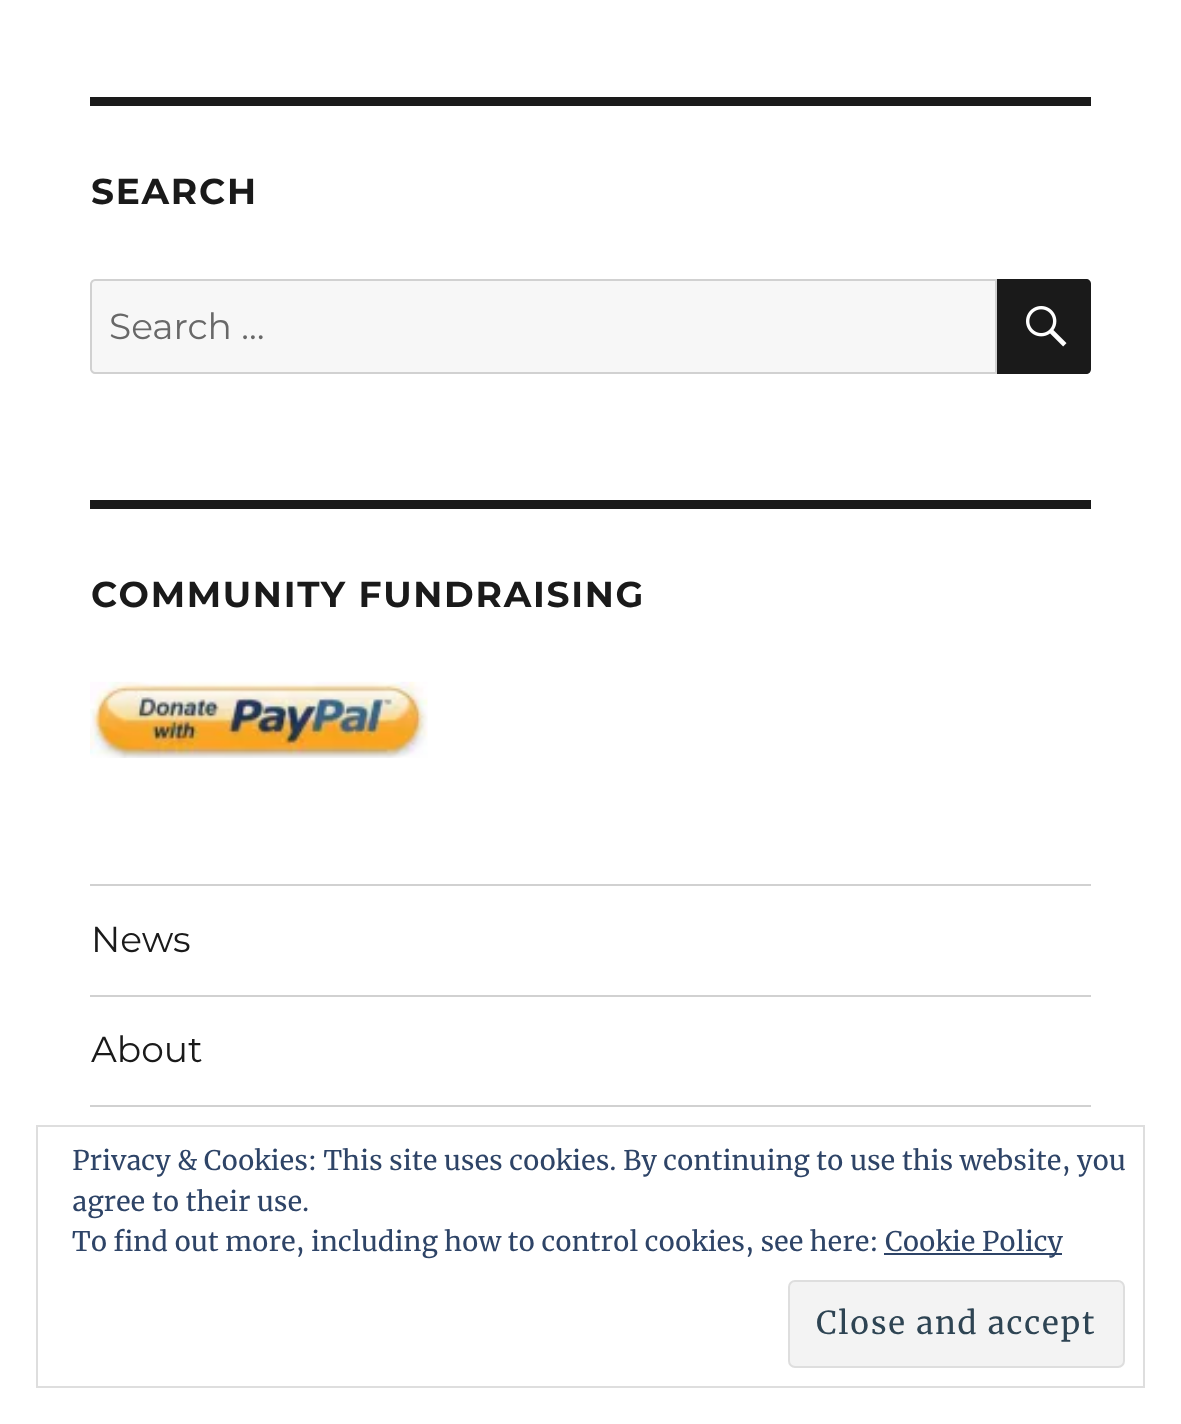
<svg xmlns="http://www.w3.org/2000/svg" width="1181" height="1424">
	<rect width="100%" height="100%" fill="#FFFFFF" />
	<rect x="90" y="97" width="1001" height="9" fill="#1A1A1A" />
	<text x="91" y="204" font-family="Montserrat" font-size="36" font-weight="100" letter-spacing="1.7" fill="#1A1A1A">SEARCH</text>
	<path d="M95 280H996V373H95C93 373 91 371 91 369V284C91 282 93 280 95 280Z" fill="#F7F7F7" stroke="#D1D1D1" stroke-width="2" />
	<text x="109" y="339" font-family="'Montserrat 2'" font-size="36" font-weight="100" fill="#686868">Search …</text>
	<path d="M997 279H1086C1089 279 1091 281 1091 284V369C1091 372 1089 374 1086 374H997Z" fill="#1A1A1A" />
	<image x="1026" y="306" width="41" height="41" href="assets/img1.png" />
	<rect x="90" y="500" width="1001" height="9" fill="#1A1A1A" />
	<text x="91" y="607" font-family="Montserrat" font-size="36" font-weight="100" letter-spacing="1.7" fill="#1A1A1A">COMMUNITY FUNDRAISING</text>
	<image x="90" y="681" width="338" height="77" href="assets/img2.png" />
	<rect x="90" y="884" width="1001" height="2" fill="#D1D1D1" />
	<text x="91" y="952" font-family="'Montserrat 2'" font-size="36" font-weight="100" fill="#1A1A1A">News</text>
	<rect x="90" y="995" width="1001" height="2" fill="#D1D1D1" />
	<text x="91" y="1062" font-family="'Montserrat 2'" font-size="36" font-weight="100" fill="#1A1A1A">About</text>
	<rect x="90" y="1105" width="1001" height="2" fill="#D1D1D1" />
	<rect x="37" y="1126" width="1107" height="261" fill="none" stroke="#DEDEDE" stroke-width="2" />
	<g font-family="Merriweather" font-size="27" fill="#2E4467">
		<text x="72" y="1170">Privacy &amp; Cookies: This site uses cookies. By continuing to use this website, you</text>
		<text x="72" y="1211">agree to their use.</text>
		<text x="72" y="1251">To find out more, including how to control cookies, see here:</text>
	</g>
	<rect x="884" y="1253" width="178" height="2" fill="#2E4467" />
	<text x="885" y="1251" font-family="Merriweather" font-size="27" fill="#2E4467">Cookie Policy</text>
	<rect x="789" y="1281" width="335" height="86" rx="6" fill="#F3F3F3" stroke="#DEDEDE" stroke-width="2" />
	<text x="816" y="1334" font-family="Merriweather" font-size="31.5" letter-spacing="1.5" fill="#2E4453">Close and accept</text>
</svg>
